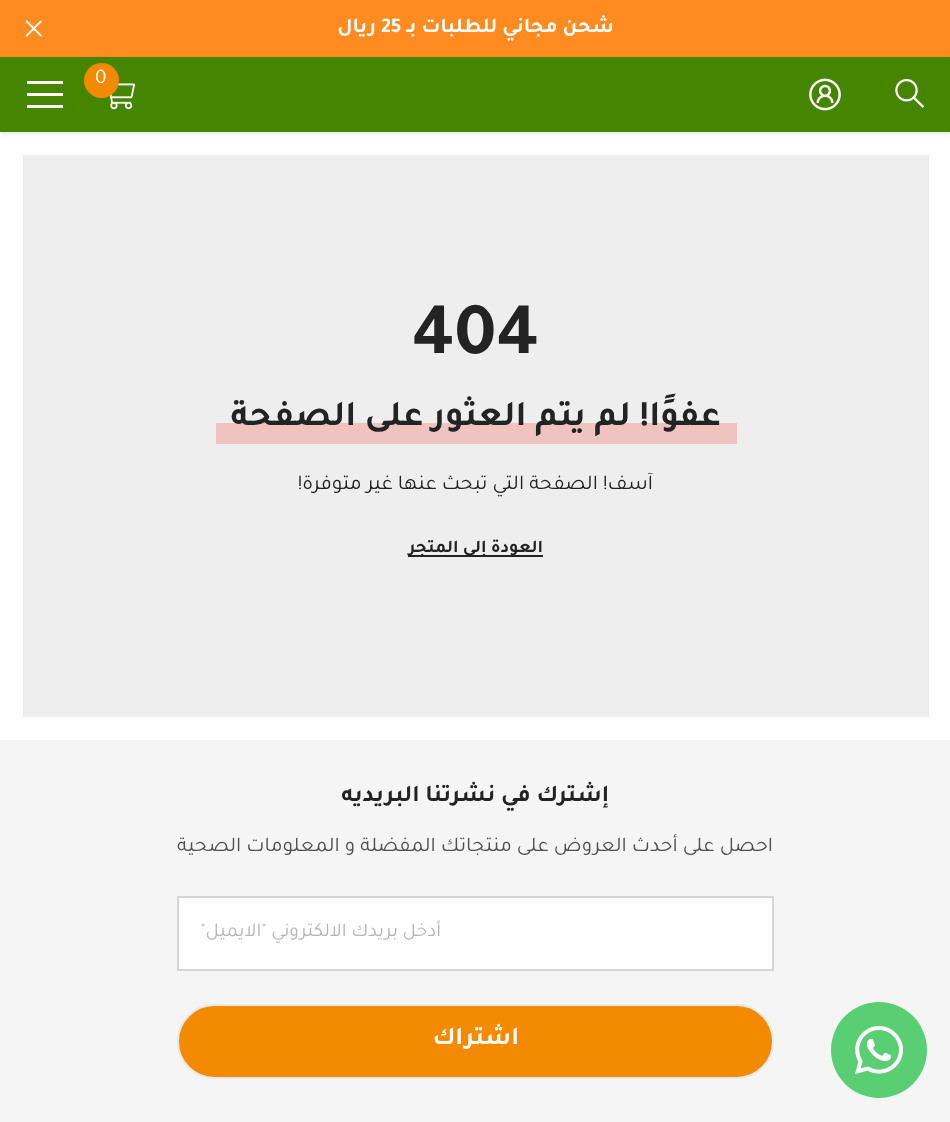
<svg xmlns="http://www.w3.org/2000/svg" width="950" height="1122">
	<rect width="100%" height="100%" fill="#FFFFFF" />
	<rect x="0" y="740" width="950" height="382" fill="#F5F5F5" />
	<circle cx="879" cy="1050" r="48" fill="#59CE72" />
	<image x="855" y="1026" width="48" height="48" href="assets/img1.png" />
	<rect x="0" y="0" width="950" height="57" fill="#FF8B21" />
	<text x="614" y="32" font-family="Tajawal" font-size="21" font-weight="700" direction="rtl" fill="#FFFFFF">شحن مجاني للطلبات بـ</text>
	<text x="381" y="32" font-family="Tajawal" font-size="21" font-weight="700" fill="#FFFFFF">25</text>
	<text x="376" y="32" font-family="Tajawal" font-size="21" font-weight="700" direction="rtl" fill="#FFFFFF">ريال</text>
	<image x="25" y="20" width="17" height="17" href="assets/img2.png" />
	<rect x="0" y="59" width="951" height="75" fill="#000000" fill-opacity="0.1" filter="blur(2px)" />
	<rect x="0" y="57" width="950" height="75" fill="#458500" />
	<image x="109" y="83" width="26" height="27" href="assets/img3.png" />
	<circle cx="101.5" cy="80.5" r="17.5" fill="#F38A00" />
	<text x="95" y="83" font-family="Tajawal" font-size="21" fill="#FFFFFF">0</text>
	<image x="895" y="79" width="30" height="29" href="assets/img4.png" />
	<image x="809" y="78" width="32" height="33" href="assets/img5.png" />
	<rect x="27" y="93" width="36" height="3" fill="#FFFFFF" />
	<rect x="27" y="81" width="36" height="3" fill="#FFFFFF" />
	<rect x="27" y="105" width="36" height="3" fill="#FFFFFF" />
	<rect x="23" y="155" width="906" height="562" fill="#EEEEEE" />
	<text x="412" y="353" font-family="Tajawal" font-size="75" font-weight="700" fill="#232323">404</text>
	<rect x="216" y="423" width="521" height="21" fill="#EFC3C0" />
	<text x="721" y="425" font-family="Tajawal" font-size="36" font-weight="700" direction="rtl" fill="#232323">عفوًا! لم يتم العثور على الصفحة</text>
	<text x="653" y="489" font-family="Tajawal" font-size="21" direction="rtl" fill="#232323">آسف! الصفحة التي تبحث عنها غير متوفرة!</text>
	<rect x="408" y="555" width="135" height="2" fill="#232323" />
	<text x="543" y="552" font-family="Tajawal" font-size="18" font-weight="700" direction="rtl" fill="#232323">العودة إلى المتجر</text>
	<text x="609" y="801" font-family="Tajawal" font-size="24" font-weight="700" direction="rtl" fill="#232323">إشترك في نشرتنا البريديه</text>
	<text x="773" y="851" font-family="Tajawal" font-size="21" direction="rtl" fill="#505050">احصل على أحدث العروض على منتجاتك المفضلة و المعلومات الصحية</text>
	<rect x="178" y="897" width="595" height="73" fill="#FFFFFF" stroke="#D5D5D5" stroke-width="2" />
	<text x="441" y="936" font-family="Tajawal" font-size="19.5" direction="rtl" fill="#B5B5B5">أدخل بريدك الالكتروني "الايميل"</text>
	<rect x="178" y="1005" width="595" height="73" rx="36.5" fill="#F38A00" stroke="#E8E8E8" stroke-width="2" />
	<text x="519" y="1044" font-family="Tajawal" font-size="25.5" font-weight="700" direction="rtl" fill="#FFFFFF">اشتراك</text>
</svg>
